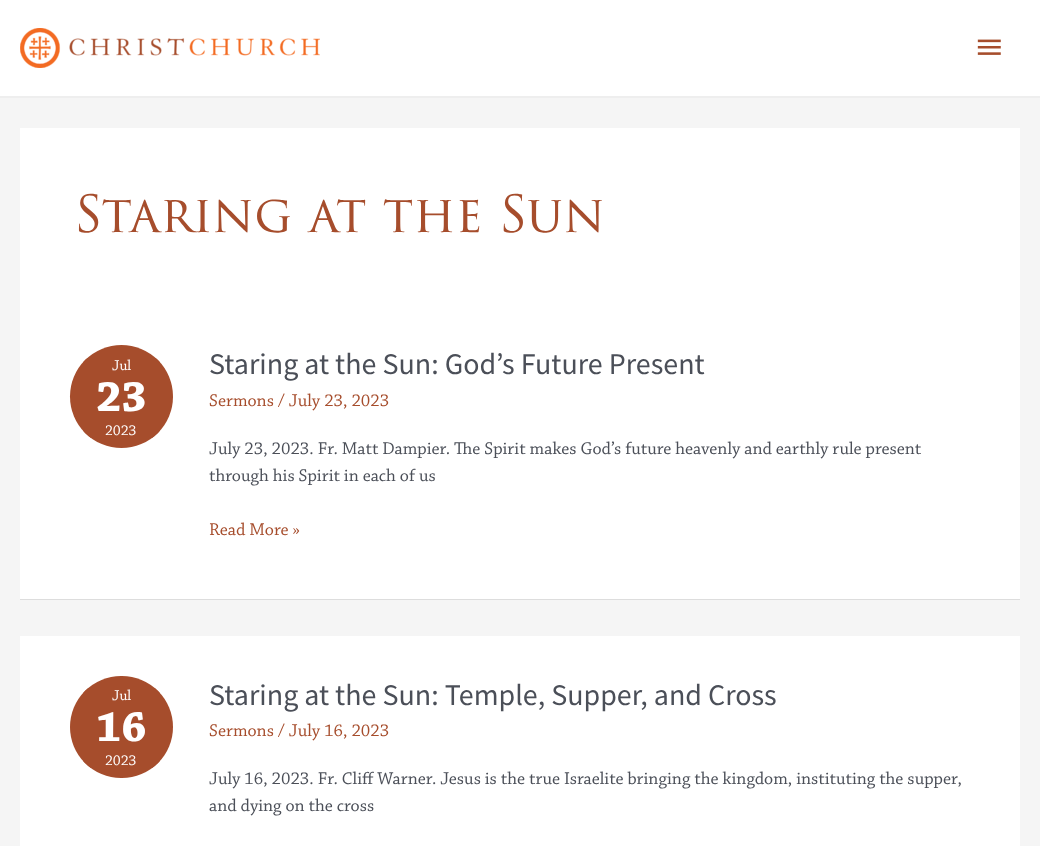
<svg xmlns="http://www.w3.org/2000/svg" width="1040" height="846">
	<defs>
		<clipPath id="clip1"><rect x="70" y="345" width="103" height="103" rx="51.5" /></clipPath>
		<clipPath id="clip2"><rect x="70" y="676" width="103" height="102" rx="51" /></clipPath>
	</defs>
	<rect width="100%" height="100%" fill="#F5F5F5" />
	<rect x="0" y="0" width="1040" height="96" fill="#FFFFFF" />
	<rect x="0" y="96" width="1040" height="2" fill="#EEEEEE" />
	<image x="20" y="28" width="300" height="40" href="assets/img1.png" />
	<image x="977" y="39" width="24" height="16" href="assets/img2.png" />
	<rect x="20" y="128" width="1000" height="471" fill="#FFFFFF" />
	<text x="74" y="232" font-family="'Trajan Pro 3'" font-size="50" fill="#A64D2C">Staring at the Sun</text>
	<rect x="20" y="599" width="1000" height="1" fill="#DDDDDD" />
	<circle cx="121.5" cy="396.5" r="51.5" fill="#A64D2C" />
	<g clip-path="url(#clip1)">
		<rect x="83" y="358" width="77" height="15" fill="#A64D2C" />
	</g>
	<text x="112" y="370" font-family="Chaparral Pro" font-size="15" fill="#FFFFFF">Jul</text>
	<text x="96" y="411" font-family="Chaparral Pro" font-size="45" font-weight="700" fill="#FFFFFF">23</text>
	<g clip-path="url(#clip1)">
		<rect x="83" y="423" width="77" height="15" fill="#A64D2C" />
	</g>
	<text x="105" y="435" font-family="Chaparral Pro" font-size="15" fill="#FFFFFF">2023</text>
	<text x="209" y="374" font-family="Source Sans Pro" font-size="30" fill="#4B4F58">Staring at the Sun: God’s Future Present</text>
	<text x="209" y="406" font-family="Chaparral Pro" font-size="18" fill="#A64D2C">Sermons / July 23, 2023</text>
	<g font-family="Chaparral Pro" font-size="18" fill="#4B4F58">
		<text x="209" y="454">July 23, 2023. Fr. Matt Dampier. The Spirit makes God’s future heavenly and earthly rule present</text>
		<text x="209" y="481">through his Spirit in each of us</text>
	</g>
	<text x="209" y="535" font-family="Chaparral Pro" font-size="18" fill="#A64D2C">Read More »</text>
	<rect x="20" y="636" width="1000" height="210" fill="#FFFFFF" />
	<rect x="70" y="676" width="103" height="102" rx="51" fill="#A64D2C" />
	<g clip-path="url(#clip2)">
		<rect x="83" y="688" width="77" height="16" fill="#A64D2C" />
	</g>
	<text x="112" y="700" font-family="Chaparral Pro" font-size="15" fill="#FFFFFF">Jul</text>
	<text x="96" y="741" font-family="Chaparral Pro" font-size="45" font-weight="700" fill="#FFFFFF">16</text>
	<g clip-path="url(#clip2)">
		<rect x="83" y="753" width="77" height="15" fill="#A64D2C" />
	</g>
	<text x="105" y="765" font-family="Chaparral Pro" font-size="15" fill="#FFFFFF">2023</text>
	<text x="209" y="705" font-family="Source Sans Pro" font-size="30" fill="#4B4F58">Staring at the Sun: Temple, Supper, and Cross</text>
	<text x="209" y="736" font-family="Chaparral Pro" font-size="18" fill="#A64D2C">Sermons / July 16, 2023</text>
	<g font-family="Chaparral Pro" font-size="18" fill="#4B4F58">
		<text x="209" y="784">July 16, 2023. Fr. Cliff Warner. Jesus is the true Israelite bringing the kingdom, instituting the supper,</text>
		<text x="209" y="811">and dying on the cross</text>
	</g>
</svg>
